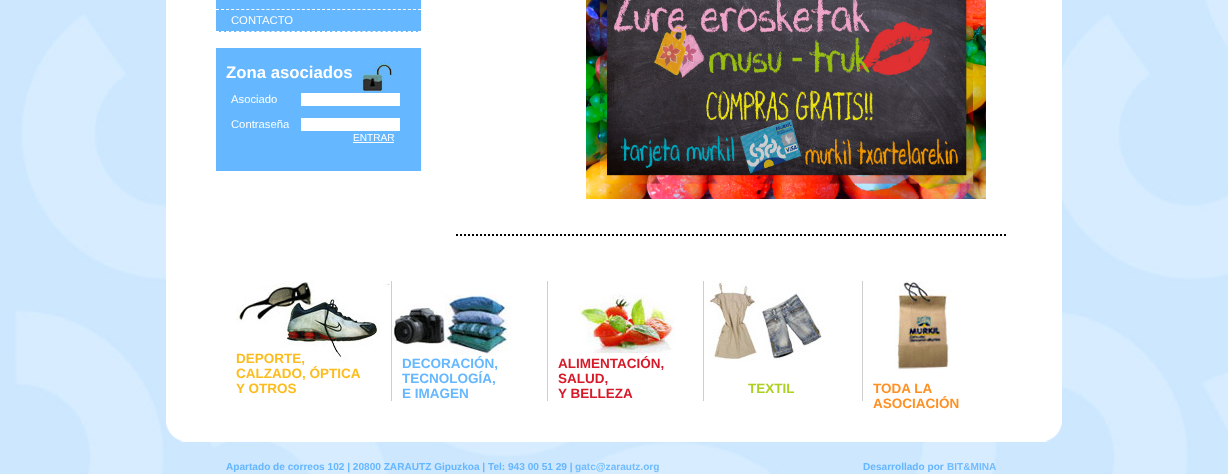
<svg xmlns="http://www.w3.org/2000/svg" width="1228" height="474">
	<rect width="100%" height="100%" fill="#FFFFFF" />
	<image x="0" y="0" width="1228" height="474" href="assets/img1.png" />
	<rect x="166" y="0" width="896" height="411" fill="#FFFFFF" />
	<rect x="216" y="0" width="205" height="32" fill="#65B7FF" />
	<path d="M216 9.5H421" fill="none" stroke="#FFFFFF" stroke-dasharray="3 2.05" />
	<path d="M216 31.5H421" fill="none" stroke="#FFFFFF" stroke-dasharray="3 2.05" />
	<text x="231" y="24" font-family="Liberation Sans" font-size="11.25" fill="#FFFFFF">CONTACTO</text>
	<rect x="216" y="48" width="205" height="123" fill="#65B7FF" />
	<text x="226" y="78" font-family="Liberation Sans" font-size="16.75" font-weight="700" fill="#FFFFFF">Zona asociados</text>
	<image x="358" y="60" width="38" height="32" href="assets/img2.png" />
	<text x="231" y="103" font-family="Liberation Sans" font-size="11.25" fill="#FFFFFF">Asociado</text>
	<rect x="301" y="93" width="99" height="13" fill="#FFFFFF" />
	<text x="231" y="128" font-family="Liberation Sans" font-size="11.25" fill="#FFFFFF">Contraseña</text>
	<rect x="301" y="118" width="99" height="13" fill="#FFFFFF" />
	<text x="353" y="141" font-family="Liberation Sans" font-size="10.1" fill="#FFFFFF">ENTRAR</text>
	<rect x="353" y="142" width="41" height="1" fill="#FFFFFF" />
	<path d="M456 235H1006" fill="none" stroke="#000000" stroke-width="2" stroke-dasharray="2 2" />
	<image x="586" y="0" width="400" height="199" href="assets/img3.png" />
	<image x="236" y="281" width="154" height="81" href="assets/img4.png" />
	<rect x="391" y="281" width="1" height="120" fill="#CECECE" />
	<g font-family="Liberation Sans" font-size="13.5" font-weight="700" fill="#FCBC1E">
		<text x="236" y="363">DEPORTE,</text>
		<text x="236" y="378">CALZADO, ÓPTICA</text>
		<text x="236" y="393">Y OTROS</text>
	</g>
	<image x="392" y="289" width="120" height="66" href="assets/img5.png" />
	<rect x="547" y="281" width="1" height="120" fill="#CECECE" />
	<g font-family="Liberation Sans" font-size="13.5" font-weight="700" fill="#65B7FF">
		<text x="402" y="368">DECORACIÓN,</text>
		<text x="402" y="383">TECNOLOGÍA,</text>
		<text x="402" y="398">E IMAGEN</text>
	</g>
	<image x="579" y="293" width="97" height="60" href="assets/img6.png" />
	<rect x="703" y="281" width="1" height="120" fill="#CECECE" />
	<g font-family="Liberation Sans" font-size="13.5" font-weight="700" fill="#D61A29">
		<text x="558" y="368">ALIMENTACIÓN,</text>
		<text x="558" y="383">SALUD,</text>
		<text x="558" y="398">Y BELLEZA</text>
	</g>
	<image x="708" y="281" width="116" height="80" href="assets/img7.png" />
	<rect x="862" y="281" width="1" height="120" fill="#CECECE" />
	<text x="748" y="393" font-family="Liberation Sans" font-size="13.5" font-weight="700" fill="#ACD122">TEXTIL</text>
	<image x="895" y="281" width="56" height="88" href="assets/img8.png" />
	<g font-family="Liberation Sans" font-size="13.5" font-weight="700" fill="#FF9023">
		<text x="873" y="393">TODA LA</text>
		<text x="873" y="408">ASOCIACIÓN</text>
	</g>
	<image x="166" y="411" width="896" height="31" href="assets/img9.png" />
	<text x="226" y="470" font-family="Liberation Sans" font-size="10.1" font-weight="700" fill="#65B7FF">Apartado de correos 102 | 20800 ZARAUTZ Gipuzkoa | Tel: 943 00 51 29 |</text>
	<text x="575" y="470" font-family="Liberation Sans" font-size="10.1" font-weight="700" fill="#71BCFF">gatc@zarautz.org</text>
	<text x="863" y="470" font-family="Liberation Sans" font-size="10.1" font-weight="700" fill="#65B7FF">Desarrollado por</text>
	<text x="947" y="470" font-family="Liberation Sans" font-size="10.1" font-weight="700" fill="#71BCFF">BIT&amp;MINA</text>
</svg>
